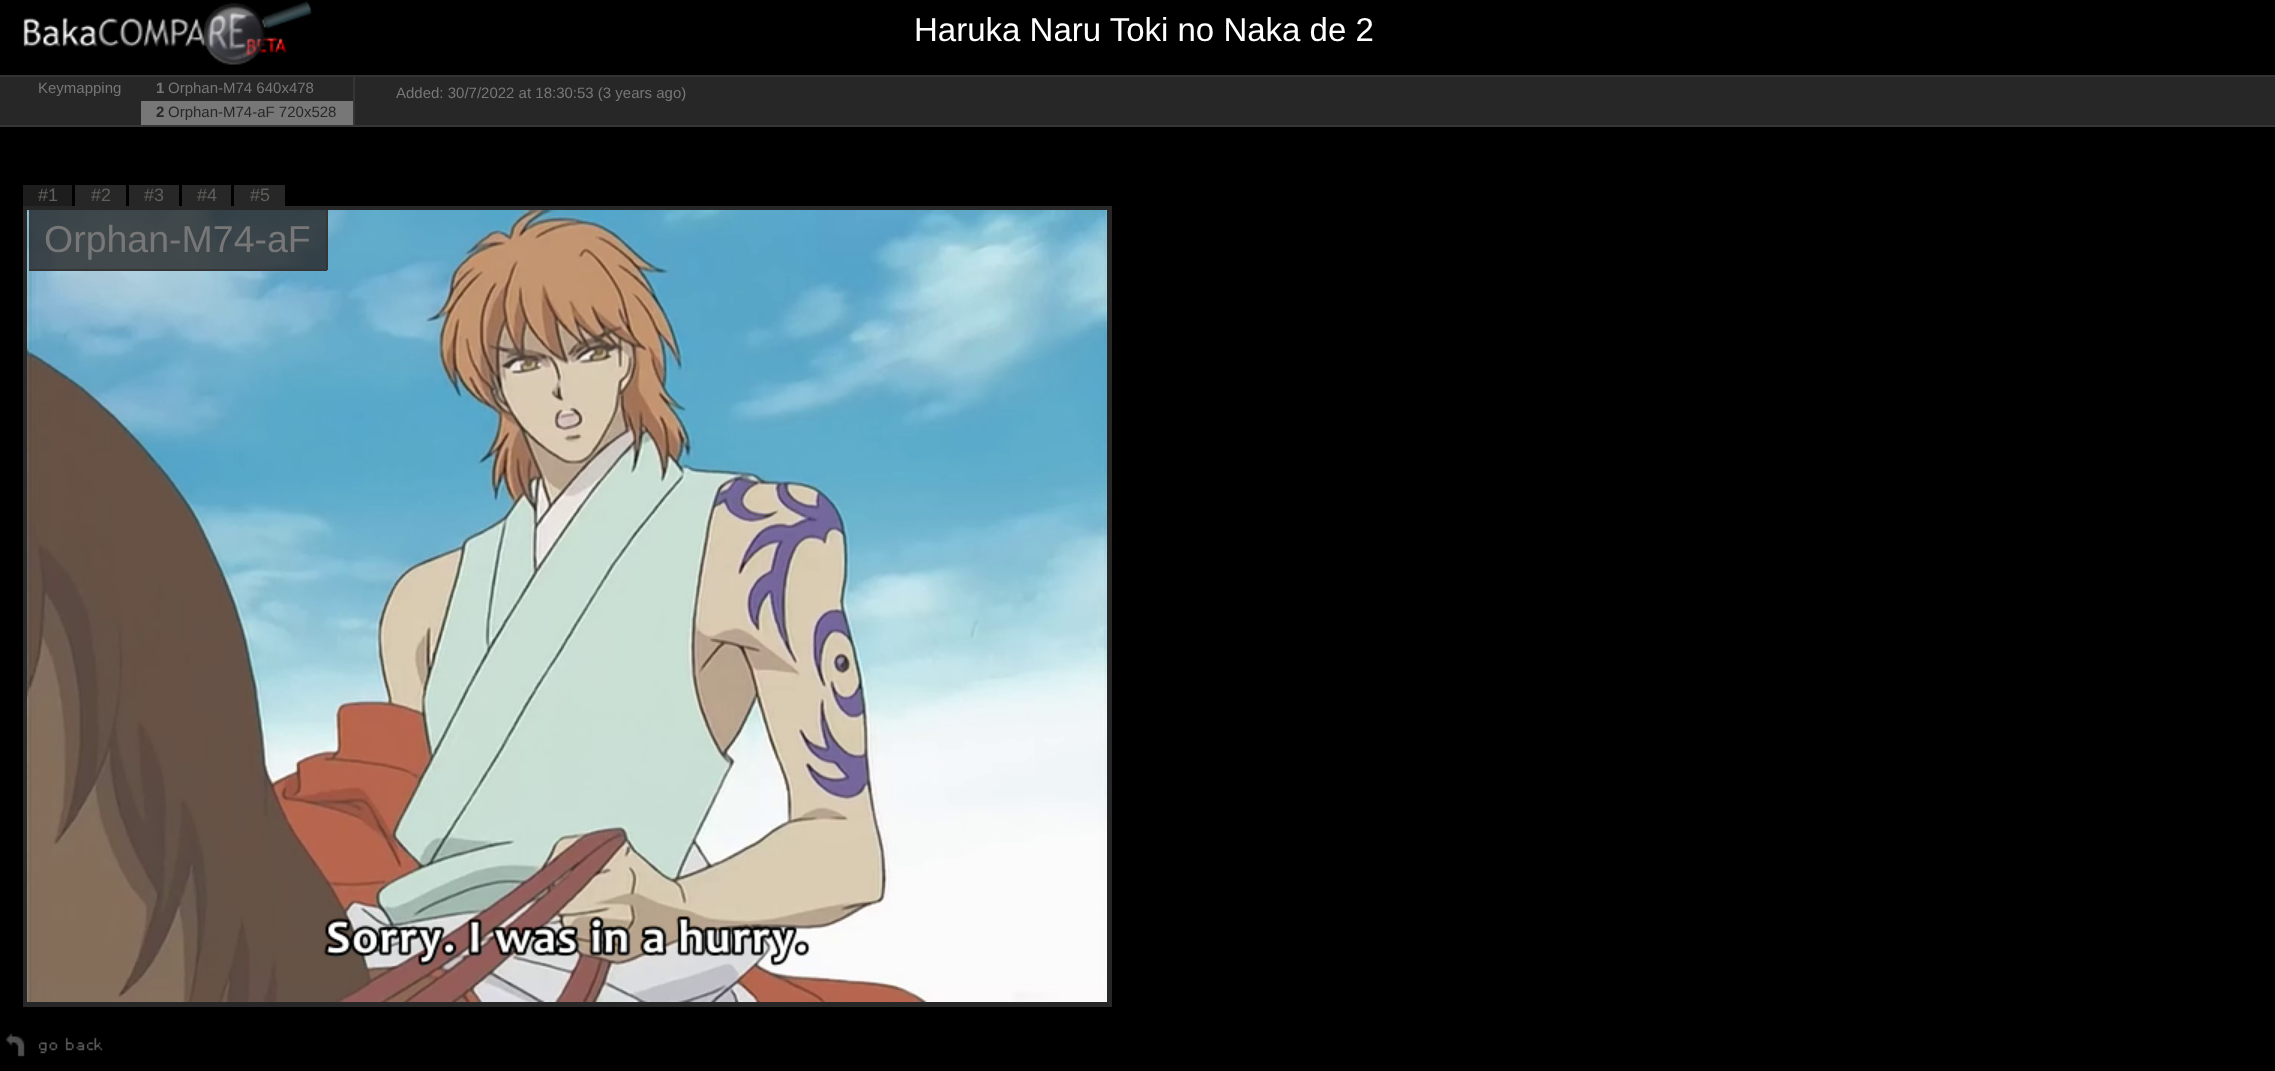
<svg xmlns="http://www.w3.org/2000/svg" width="2275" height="1071">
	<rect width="100%" height="100%" fill="#000000" />
	<image x="23" y="1" width="289" height="64" href="assets/img1.png" />
	<text x="914" y="41" font-family="Liberation Sans" font-size="33" fill="#FFFFFF">Haruka Naru Toki no Naka de 2</text>
	<rect x="0" y="77" width="2275" height="48" fill="#272727" />
	<rect x="0" y="75" width="2275" height="2" fill="#333333" />
	<rect x="0" y="125" width="2275" height="2" fill="#363636" />
	<text x="38" y="93" font-family="Liberation Sans" font-size="15" fill="#777777">Keymapping</text>
	<rect x="353" y="77" width="2" height="48" fill="#363636" />
	<text x="156" y="93" font-family="Liberation Sans" font-size="15" font-weight="700" fill="#777777">1</text>
	<text x="168" y="93" font-family="Liberation Sans" font-size="15" fill="#777777">Orphan-M74 640x478</text>
	<rect x="141" y="101" width="212" height="24" fill="#777777" />
	<text x="156" y="117" font-family="Liberation Sans" font-size="15" font-weight="700" fill="#272727">2</text>
	<text x="168" y="117" font-family="Liberation Sans" font-size="15" fill="#272727">Orphan-M74-aF 720x528</text>
	<text x="396" y="98" font-family="Liberation Sans" font-size="15" fill="#777777">Added: 30/7/2022 at 18:30:53 (3 years ago)</text>
	<rect x="23" y="185" width="49" height="21" fill="#1D1D1D" />
	<text x="38" y="201" font-family="Liberation Sans" font-size="18" fill="#605F5D">#1</text>
	<rect x="75" y="185" width="51" height="21" fill="#272727" />
	<text x="91" y="201" font-family="Liberation Sans" font-size="18" fill="#605F5D">#2</text>
	<rect x="129" y="185" width="50" height="21" fill="#272727" />
	<text x="144" y="201" font-family="Liberation Sans" font-size="18" fill="#605F5D">#3</text>
	<rect x="182" y="185" width="49" height="21" fill="#272727" />
	<text x="197" y="201" font-family="Liberation Sans" font-size="18" fill="#605F5D">#4</text>
	<rect x="234" y="185" width="51" height="21" fill="#272727" />
	<text x="250" y="201" font-family="Liberation Sans" font-size="18" fill="#605F5D">#5</text>
	<rect x="25.5" y="208.5" width="1084" height="796" fill="none" stroke="#272727" stroke-width="5" />
	<image x="27" y="210" width="1080" height="792" href="assets/img2.png" />
	<rect x="29" y="210" width="297" height="59" fill="#272727" fill-opacity="0.8" />
	<rect x="326" y="210" width="2" height="60" fill="#363636" />
	<rect x="29" y="269" width="298" height="2" fill="#363636" />
	<text x="44" y="252" font-family="Liberation Sans" font-size="37.5" fill="#777777">Orphan-M74-aF</text>
	<image x="5" y="1033" width="98" height="24" href="assets/img3.png" />
</svg>
